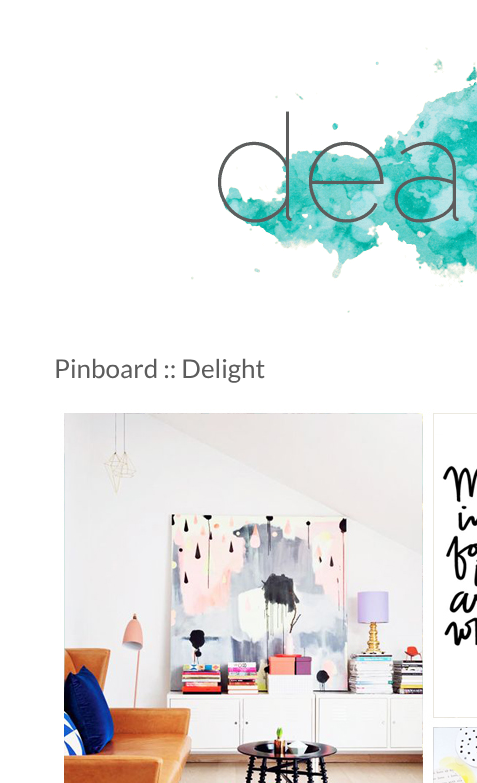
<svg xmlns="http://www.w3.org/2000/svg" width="477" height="783">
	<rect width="100%" height="100%" fill="#FFFFFF" />
	<image x="191" y="47" width="286" height="266" href="assets/img1.png" />
	<text x="54" y="378" font-family="Lato" font-size="26" fill="#5C5C5C">Pinboard :: Delight</text>
	<image x="60" y="409" width="417" height="374" href="assets/img2.png" />
</svg>
